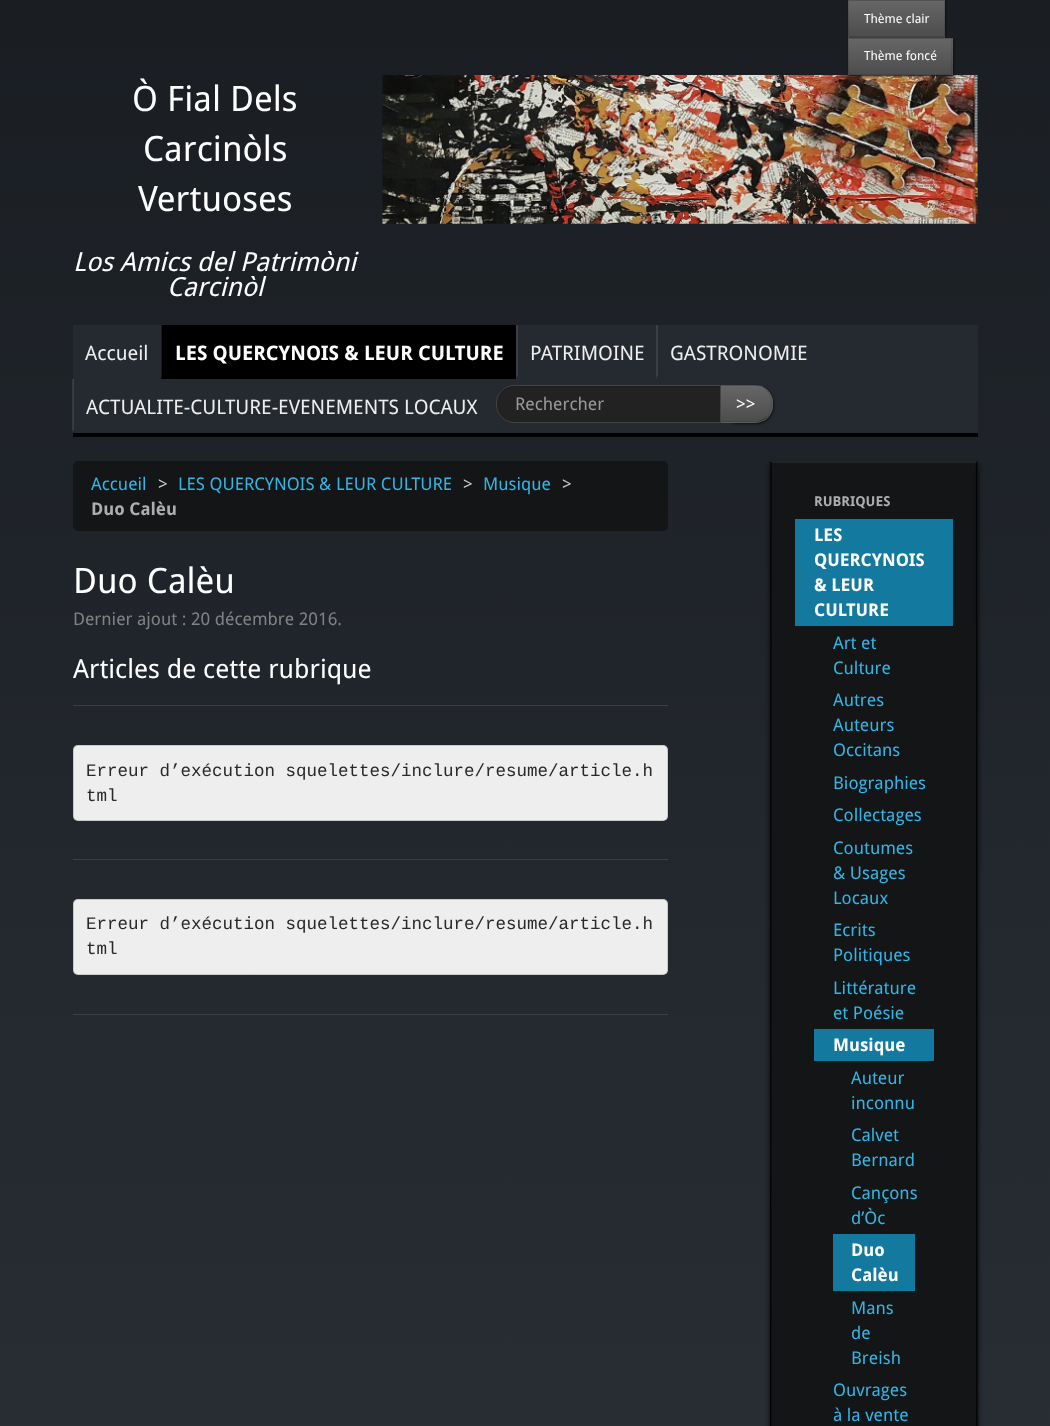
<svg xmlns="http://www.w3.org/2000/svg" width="1050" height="1426">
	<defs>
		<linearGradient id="g1" gradientUnits="userSpaceOnUse" x1="525" y1="0" x2="525" y2="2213"><stop offset="0" stop-color="#1A1E23" /><stop offset="1" stop-color="#30363E" /></linearGradient>
		<linearGradient id="g2" gradientUnits="userSpaceOnUse" x1="896" y1="1.2" x2="896" y2="36"><stop offset="0" stop-color="#666666" /><stop offset="1" stop-color="#4D4D4D" /></linearGradient>
		<linearGradient id="g3" gradientUnits="userSpaceOnUse" x1="900" y1="39" x2="900" y2="74"><stop offset="0" stop-color="#666666" /><stop offset="1" stop-color="#4D4D4D" /></linearGradient>
		<clipPath id="clip1"><path d="M720 385H755C765 385 773 393 773 403V405C773 415 765 423 755 423H720Z" /></clipPath>
		<linearGradient id="g4" gradientUnits="userSpaceOnUse" x1="746" y1="386" x2="746" y2="421"><stop offset="0" stop-color="#666666" /><stop offset="1" stop-color="#4D4D4D" /></linearGradient>
	</defs>
	<rect width="100%" height="100%" fill="#FFFFFF" />
	<rect x="0" y="0" width="1050" height="1426" fill="url(#g1)" />
	<rect x="849" y="1" width="97" height="38" fill="#111111" filter="blur(1px)" />
	<rect x="848" y="0" width="97" height="38" fill="#5C5C5C" />
	<rect x="848" y="1" width="97" height="35" fill="url(#g2)" />
	<path d="M848 0H945L944 1H849Z" fill="#535353" />
	<path d="M945 0V37.5L944 36V1Z" fill="#000000" fill-opacity="0.1" />
	<path d="M945 38H848L849 36H944Z" fill="#454545" />
	<path d="M847.5 37.5V0L849 1V36Z" fill="#000000" fill-opacity="0.1" />
	<text x="864" y="23" font-family="Droid Sans" font-size="12.5" fill="#FFFFFF">Thème clair</text>
	<image x="382" y="75" width="596" height="149" href="assets/img1.png" />
	<rect x="849" y="39" width="105" height="37" fill="#111111" filter="blur(1px)" />
	<rect x="848" y="38" width="105" height="37" fill="#5C5C5C" />
	<rect x="848" y="39" width="105" height="35" fill="url(#g3)" />
	<path d="M848 38H952L951 39H849Z" fill="#535353" />
	<path d="M952.5 37.5V75L951 74V39Z" fill="#000000" fill-opacity="0.1" />
	<path d="M952 75H848L849 74H951Z" fill="#000000" fill-opacity="0.25" />
	<path d="M847.5 75V37.5L849 39V74Z" fill="#000000" fill-opacity="0.1" />
	<text x="864" y="60" font-family="Droid Sans" font-size="12.5" fill="#FFFFFF">Thème foncé</text>
	<g font-family="Droid Sans" font-size="35" fill="#FFFFFF">
		<text x="132" y="111">Ò Fial Dels</text>
		<text x="143" y="161">Carcinòls</text>
		<text x="138" y="211">Vertuoses</text>
	</g>
	<g font-family="Droid Sans" font-size="26.25" font-style="italic" fill="#FFFFFF">
		<text x="73" y="271">Los Amics del Patrimòni</text>
		<text x="167" y="296">Carcinòl</text>
	</g>
	<rect x="73" y="325" width="905" height="108" fill="#252A30" />
	<rect x="73" y="433" width="905" height="4" fill="#000000" />
	<text x="85" y="360" font-family="Droid Sans" font-size="20" fill="#EEEEEE">Accueil</text>
	<rect x="161" y="325" width="355" height="54" fill="#000000" />
	<path d="M161 379V325H162V375Z" fill="#1A1A1A" />
	<text x="175" y="360" font-family="Droid Sans" font-size="20" font-weight="700" fill="#FFFFFF">LES QUERCYNOIS &amp; LEUR CULTURE</text>
	<path d="M516 379V325H518V375Z" fill="#3B3F45" />
	<text x="530" y="360" font-family="Droid Sans" font-size="20" fill="#EEEEEE">PATRIMOINE</text>
	<path d="M656 379V325H658V375Z" fill="#3B3F45" />
	<text x="670" y="360" font-family="Droid Sans" font-size="20" fill="#EEEEEE">GASTRONOMIE</text>
	<path d="M72 432V379H74V429Z" fill="#FFFFFF" fill-opacity="0.1" />
	<text x="86" y="414" font-family="Droid Sans" font-size="20" fill="#EEEEEE">ACTUALITE-CULTURE-EVENEMENTS LOCAUX</text>
	<rect x="721" y="386" width="53" height="38" rx="18" fill="#111111" filter="blur(1px)" />
	<path d="M720 385H755C765 385 773 393 773 403V405C773 415 765 423 755 423H720Z" fill="#5C5C5C" />
	<g clip-path="url(#clip1)">
		<rect x="721" y="386" width="52" height="35" fill="url(#g4)" />
	</g>
	<path d="M720 385L721 386H755C760 386 764 388 766 391L767 390C764 387 760 385 755 385Z" fill="#000000" fill-opacity="0.1" />
	<path d="M767.5 390C773.5 397 774 410.5 767 417L766.5 416.5C773 410 772.5 397.5 766.5 391Z" fill="#000000" fill-opacity="0.1" />
	<path d="M767 417C764 420 760 422 755 422H720L722 421H755C760 421 764 419 766 416Z" fill="#000000" fill-opacity="0.25" />
	<path d="M514 385H721V423H514C504 423 496 415 496 405V403C496 393 504 385 514 385Z" fill="#222222" />
	<path d="M514 388H720V386H514C506 386 499 392 498 400C500 394 506 388 514 388Z" fill="#1F1F1F" />
	<path d="M514 385.5H720.5V422.5H514C504.5 422.5 496.5 414.5 496.5 405V403C496.5 393.5 504.5 385.5 514 385.5Z" fill="none" stroke="#444444" />
	<text x="515" y="410" font-family="Droid Sans" font-size="17.5" fill="#999999">Rechercher</text>
	<text x="736" y="410" font-family="Droid Sans" font-size="17.5" fill="#FFFFFF">&gt;&gt;</text>
	<rect x="73" y="461" width="595" height="70" rx="5" fill="#131517" />
	<text x="91" y="490" font-family="Droid Sans" font-size="17.5" fill="#33B5E5">Accueil</text>
	<text x="158" y="490" font-family="Droid Sans" font-size="17.5" fill="#CCCCCC">&gt;</text>
	<text x="178" y="490" font-family="Droid Sans" font-size="17.5" fill="#33B5E5">LES QUERCYNOIS &amp; LEUR CULTURE</text>
	<text x="463" y="490" font-family="Droid Sans" font-size="17.5" fill="#CCCCCC">&gt;</text>
	<text x="483" y="490" font-family="Droid Sans" font-size="17.5" fill="#33B5E5">Musique</text>
	<text x="562" y="490" font-family="Droid Sans" font-size="17.5" fill="#CCCCCC">&gt;</text>
	<text x="91" y="515" font-family="Droid Sans" font-size="17.5" font-weight="700" fill="#ADAFAE">Duo Calèu</text>
	<text x="73" y="593" font-family="Droid Sans" font-size="35" fill="#FFFFFF">Duo Calèu</text>
	<text x="73" y="625" font-family="Droid Sans" font-size="17.5" fill="#818283">Dernier ajout : 20 décembre 2016.</text>
	<text x="73" y="678" font-family="Droid Sans" font-size="26.25" fill="#FFFFFF">Articles de cette rubrique</text>
	<rect x="73" y="705" width="595" height="1" fill="#3C4045" />
	<rect x="73" y="745" width="595" height="76" rx="5" fill="#EEEEEE" />
	<rect x="73.5" y="745.5" width="594" height="75" rx="4.5" fill="none" stroke="#000000" stroke-opacity="0.15" />
	<g font-family="Liberation Mono" font-size="17.5" fill="#282828">
		<text x="86" y="776">Erreur d’exécution squelettes/inclure/resume/article.h</text>
		<text x="86" y="801">tml</text>
	</g>
	<rect x="73" y="859" width="595" height="1" fill="#3C4045" />
	<rect x="73" y="1014" width="595" height="1" fill="#3C4045" />
	<rect x="73" y="899" width="595" height="76" rx="5" fill="#EEEEEE" />
	<rect x="73.5" y="899.5" width="594" height="75" rx="4.5" fill="none" stroke="#000000" stroke-opacity="0.15" />
	<g font-family="Liberation Mono" font-size="17.5" fill="#282828">
		<text x="86" y="929">Erreur d’exécution squelettes/inclure/resume/article.h</text>
		<text x="86" y="954">tml</text>
	</g>
	<rect x="770" y="464" width="208" height="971" rx="1" fill="#000000" fill-opacity="0.8" filter="blur(2.5px)" />
	<rect x="770" y="461" width="208" height="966" rx="1" fill="#131517" />
	<path d="M771 462H976.5" fill="none" stroke="#353535" stroke-width="1.2" />
	<path d="M976.5 462L977 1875L976 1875.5H771L770.5 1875L771 462" fill="none" stroke="#030303" stroke-width="1.2" />
	<text x="814" y="506" font-family="Droid Sans" font-size="13.75" font-weight="700" fill="#ADAFAE">RUBRIQUES</text>
	<rect x="795" y="519" width="158" height="107" fill="#14799E" />
	<g font-family="Droid Sans" font-size="17.5" font-weight="700" fill="#FFFFFF">
		<text x="814" y="541">LES</text>
		<text x="814" y="566">QUERCYNOIS</text>
		<text x="814" y="591">&amp; LEUR</text>
		<text x="814" y="616">CULTURE</text>
	</g>
	<g font-family="Droid Sans" font-size="17.5" fill="#33B5E5">
		<text x="833" y="649">Art et</text>
		<text x="833" y="674">Culture</text>
		<text x="833" y="706">Autres</text>
		<text x="833" y="731">Auteurs</text>
		<text x="833" y="756">Occitans</text>
		<text x="833" y="789">Biographies</text>
		<text x="833" y="821">Collectages</text>
		<text x="833" y="854">Coutumes</text>
		<text x="833" y="879">&amp; Usages</text>
		<text x="833" y="904">Locaux</text>
		<text x="833" y="936">Ecrits</text>
		<text x="833" y="961">Politiques</text>
		<text x="833" y="994">Littérature</text>
		<text x="833" y="1019">et Poésie</text>
	</g>
	<rect x="814" y="1029" width="120" height="32" fill="#14799E" />
	<text x="833" y="1051" font-family="Droid Sans" font-size="17.5" font-weight="700" fill="#FFFFFF">Musique</text>
	<g font-family="Droid Sans" font-size="17.5" fill="#33B5E5">
		<text x="851" y="1084">Auteur</text>
		<text x="851" y="1109">inconnu</text>
		<text x="851" y="1141">Calvet</text>
		<text x="851" y="1166">Bernard</text>
		<text x="851" y="1199">Cançons</text>
		<text x="851" y="1224">d’Òc</text>
	</g>
	<rect x="833" y="1234" width="82" height="57" fill="#14799E" />
	<g font-family="Droid Sans" font-size="17.5" font-weight="700" fill="#FFFFFF">
		<text x="851" y="1256">Duo</text>
		<text x="851" y="1281">Calèu</text>
	</g>
	<g font-family="Droid Sans" font-size="17.5" fill="#33B5E5">
		<text x="851" y="1314">Mans</text>
		<text x="851" y="1339">de</text>
		<text x="851" y="1364">Breish</text>
		<text x="833" y="1396">Ouvrages</text>
		<text x="833" y="1421">à la vente</text>
	</g>
</svg>
